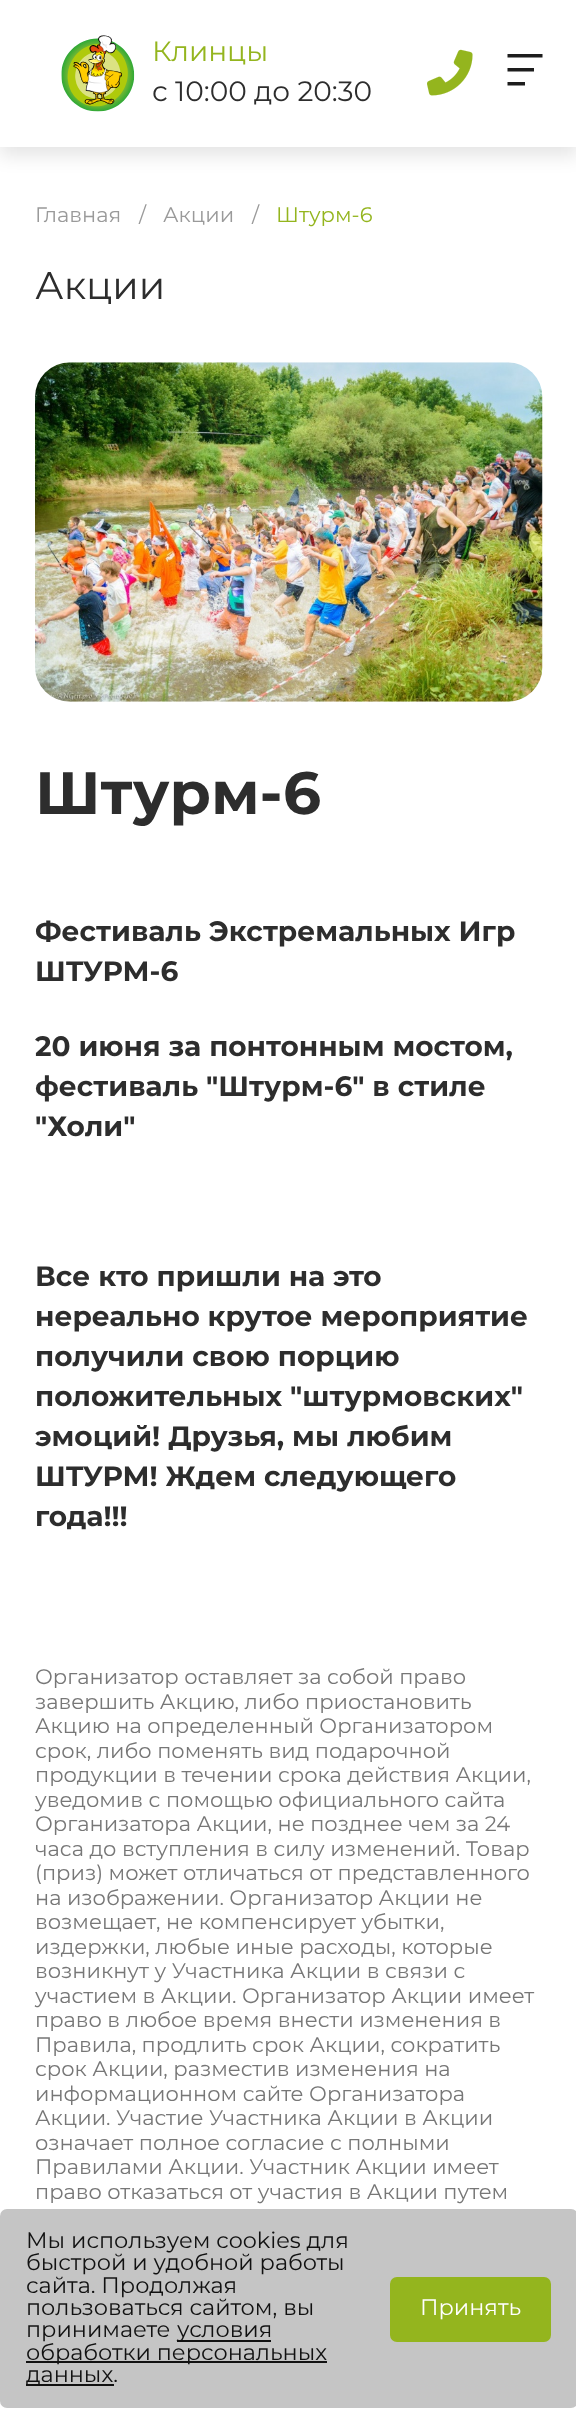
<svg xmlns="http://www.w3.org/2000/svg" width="576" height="2433">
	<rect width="100%" height="100%" fill="#FFFFFF" />
	<rect x="0" y="9" width="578" height="147" fill="#000000" fill-opacity="0.1" filter="blur(9px)" />
	<rect x="0" y="0" width="576" height="147" fill="#FFFFFF" />
	<image x="61" y="35" width="74" height="77" href="assets/img1.png" />
	<text x="152" y="61" font-family="Montserrat" font-size="28" fill="#94B51E">Клинцы</text>
	<text x="152" y="101" font-family="Montserrat" font-size="28" fill="#2D2D2D">с 10:00 до 20:30</text>
	<image x="427" y="49" width="46" height="47" href="assets/img2.png" />
	<path d="M507.5 54V57.5H542.5V54ZM507.5 68V71.5H534V68ZM507.5 82V85.5H525V82Z" fill="#1D1D1D" />
	<g font-family="Montserrat" font-size="21" fill="#9A9A9A">
		<text x="35" y="222">Главная</text>
		<text x="139" y="222">/</text>
		<text x="163" y="222">Акции</text>
		<text x="252" y="222">/</text>
	</g>
	<text x="276" y="222" font-family="Montserrat" font-size="21" fill="#94B51E">Штурм-6</text>
	<text x="35" y="299" font-family="Montserrat" font-size="38.5" fill="#2D2D2D">Акции</text>
	<image x="35" y="362" width="508" height="340" href="assets/img3.png" />
	<text x="35" y="814" font-family="Montserrat" font-size="59.75" font-weight="700" fill="#2D2D2D">Штурм-6</text>
	<g font-family="Montserrat" font-size="28" font-weight="700" fill="#2D2D2D">
		<text x="35" y="941">Фестиваль Экстремальных Игр</text>
		<text x="35" y="981">ШТУРМ-6</text>
		<text x="35" y="1056">20 июня за понтонным мостом,</text>
		<text x="35" y="1096">фестиваль "Штурм-6" в стиле</text>
		<text x="35" y="1136">"Холи"</text>
		<text x="35" y="1286">Все кто пришли на это</text>
		<text x="35" y="1326">нереально крутое мероприятие</text>
		<text x="35" y="1366">получили свою порцию</text>
		<text x="35" y="1406">положительных "штурмовских"</text>
		<text x="35" y="1446">эмоций! Друзья, мы любим</text>
		<text x="35" y="1486">ШТУРМ! Ждем следующего</text>
		<text x="35" y="1526">года!!!</text>
	</g>
	<g font-family="Montserrat" font-size="21" fill="#777777">
		<text x="35" y="1684">Организатор оставляет за собой право</text>
		<text x="35" y="1709">завершить Акцию, либо приостановить</text>
		<text x="35" y="1733">Акцию на определенный Организатором</text>
		<text x="35" y="1758">срок, либо поменять вид подарочной</text>
		<text x="35" y="1782">продукции в течении срока действия Акции,</text>
		<text x="35" y="1807">уведомив с помощью официального сайта</text>
		<text x="35" y="1831">Организатора Акции, не позднее чем за 24</text>
		<text x="35" y="1856">часа до вступления в силу изменений. Товар</text>
		<text x="35" y="1880">(приз) может отличаться от представленного</text>
		<text x="35" y="1905">на изображении. Организатор Акции не</text>
		<text x="35" y="1929">возмещает, не компенсирует убытки,</text>
		<text x="35" y="1954">издержки, любые иные расходы, которые</text>
		<text x="35" y="1978">возникнут у Участника Акции в связи с</text>
		<text x="35" y="2003">участием в Акции. Организатор Акции имеет</text>
		<text x="35" y="2027">право в любое время внести изменения в</text>
		<text x="35" y="2052">Правила, продлить срок Акции, сократить</text>
		<text x="35" y="2076">срок Акции, разместив изменения на</text>
		<text x="35" y="2101">информационном сайте Организатора</text>
		<text x="35" y="2125">Акции. Участие Участника Акции в Акции</text>
		<text x="35" y="2150">означает полное согласие с полными</text>
		<text x="35" y="2174">Правилами Акции. Участник Акции имеет</text>
		<text x="35" y="2199">право отказаться от участия в Акции путем</text>
	</g>
	<rect x="0" y="2209" width="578" height="199" rx="7" fill="#C5C5C5" />
	<g font-family="Montserrat" font-size="22.4" fill="#111111">
		<text x="26" y="2248">Мы используем cookies для</text>
		<text x="26" y="2270">быстрой и удобной работы</text>
		<text x="26" y="2293">сайта. Продолжая</text>
		<text x="26" y="2315">пользоваться сайтом, вы</text>
		<text x="26" y="2337">принимаете</text>
	</g>
	<rect x="177" y="2340" width="94" height="2" fill="#111111" />
	<text x="177" y="2337" font-family="Montserrat" font-size="22.4" fill="#111111">условия</text>
	<rect x="26" y="2361" width="301" height="2" fill="#111111" />
	<text x="26" y="2360" font-family="Montserrat" font-size="22.4" fill="#111111">обработки персональных</text>
	<rect x="26" y="2384" width="88" height="2" fill="#111111" />
	<text x="26" y="2382" font-family="Montserrat" font-size="22.4" fill="#111111">данных.</text>
	<rect x="391" y="2278" width="159" height="63" rx="6" fill="#94B51E" stroke="#94B51E" stroke-width="2" />
	<text x="420" y="2315" font-family="Montserrat" font-size="22.4" fill="#FFFFFF">Принять</text>
</svg>
